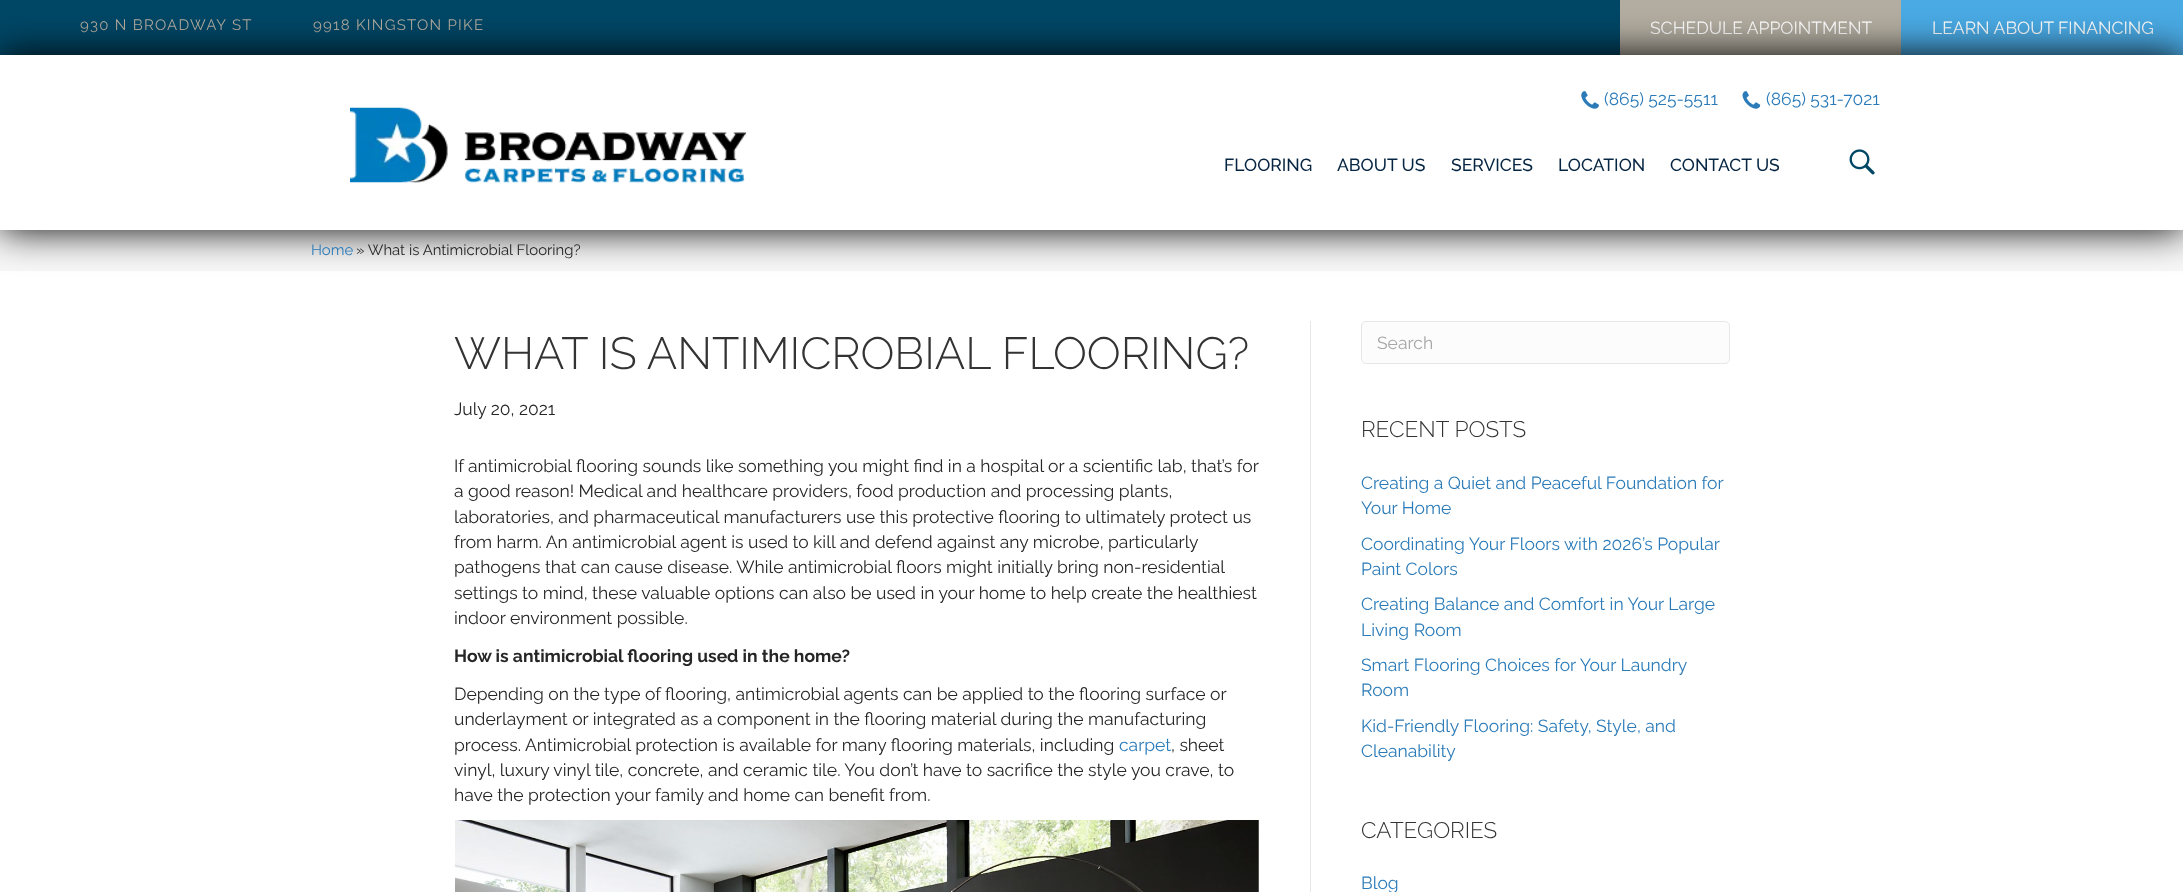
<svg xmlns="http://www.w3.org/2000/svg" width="2183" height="892">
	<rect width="100%" height="100%" fill="#FFFFFF" />
	<rect x="0" y="0" width="1620" height="55" fill="#004766" />
	<g font-family="Raleway" font-size="15" letter-spacing="1.25" fill="#B3ADA1">
		<text x="80" y="30">930 N BROADWAY ST</text>
		<text x="313" y="30">9918 KINGSTON PIKE</text>
	</g>
	<rect x="1620" y="0" width="281" height="55" fill="#B3ADA1" />
	<text x="1650" y="34" font-family="Raleway" font-size="17.5" fill="#FFFFFF">SCHEDULE APPOINTMENT</text>
	<rect x="1901" y="0" width="282" height="55" fill="#4AAAE4" />
	<text x="1932" y="34" font-family="Raleway" font-size="17.5" fill="#FFFFFF">LEARN ABOUT FINANCING</text>
	<rect x="0" y="230" width="2183" height="41" fill="#F7F7F7" />
	<rect x="0" y="55" width="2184" height="175" fill="#000000" filter="blur(19px)" />
	<rect x="0" y="55" width="2183" height="175" fill="#FFFFFF" />
	<image x="350" y="107" width="397" height="76" href="assets/img1.png" />
	<image x="1581" y="91" width="18" height="18" href="assets/img2.png" />
	<text x="1604" y="105" font-family="Raleway" font-size="17.5" fill="#2B7BB9">(865) 525-5511</text>
	<image x="1742" y="91" width="19" height="18" href="assets/img3.png" />
	<text x="1766" y="105" font-family="Raleway" font-size="17.5" fill="#2B7BB9">(865) 531-7021</text>
	<g font-family="Raleway" font-size="17.5" font-weight="500" fill="#062542">
		<text x="1224" y="171">FLOORING</text>
		<text x="1337" y="171">ABOUT US</text>
		<text x="1451" y="171">SERVICES</text>
		<text x="1558" y="171">LOCATION</text>
		<text x="1670" y="171">CONTACT US</text>
	</g>
	<image x="1849" y="149" width="26" height="26" href="assets/img4.png" />
	<text x="311" y="255" font-family="Raleway" font-size="14.9" fill="#2B7BB9">Home</text>
	<text x="356" y="255" font-family="Raleway" font-size="14.9" fill="#262626">» What is Antimicrobial Flooring?</text>
	<rect x="1310" y="321" width="1" height="571" fill="#E6E6E6" />
	<text x="454" y="369" font-family="Raleway" font-size="45" font-weight="300" fill="#333333">WHAT IS ANTIMICROBIAL FLOORING?</text>
	<g font-family="Raleway" font-size="17.5" fill="#262626">
		<text x="454" y="415">July 20, 2021</text>
		<text x="454" y="472">If antimicrobial flooring sounds like something you might find in a hospital or a scientific lab, that’s for</text>
		<text x="454" y="497">a good reason! Medical and healthcare providers, food production and processing plants,</text>
		<text x="454" y="523">laboratories, and pharmaceutical manufacturers use this protective flooring to ultimately protect us</text>
		<text x="454" y="548">from harm. An antimicrobial agent is used to kill and defend against any microbe, particularly</text>
		<text x="454" y="573">pathogens that can cause disease. While antimicrobial floors might initially bring non-residential</text>
		<text x="454" y="599">settings to mind, these valuable options can also be used in your home to help create the healthiest</text>
		<text x="454" y="624">indoor environment possible.</text>
	</g>
	<text x="454" y="662" font-family="Raleway" font-size="17.5" font-weight="700" fill="#262626">How is antimicrobial flooring used in the home?</text>
	<g font-family="Raleway" font-size="17.5" fill="#262626">
		<text x="454" y="700">Depending on the type of flooring, antimicrobial agents can be applied to the flooring surface or</text>
		<text x="454" y="725">underlayment or integrated as a component in the flooring material during the manufacturing</text>
		<text x="454" y="751">process. Antimicrobial protection is available for many flooring materials, including</text>
	</g>
	<text x="1119" y="751" font-family="Raleway" font-size="17.5" fill="#2B7BB9">carpet</text>
	<g font-family="Raleway" font-size="17.5" fill="#262626">
		<text x="1171" y="751">, sheet</text>
		<text x="454" y="776">vinyl, luxury vinyl tile, concrete, and ceramic tile. You don’t have to sacrifice the style you crave, to</text>
		<text x="454" y="801">have the protection your family and home can benefit from.</text>
	</g>
	<image x="455" y="820" width="804" height="72" href="assets/img5.png" />
	<rect x="1361.5" y="321.5" width="368" height="42" rx="4.5" fill="#FCFCFC" stroke="#E6E6E6" />
	<text x="1377" y="349" font-family="Raleway" font-size="17.5" fill="#A6A6A6">Search</text>
	<text x="1361" y="437" font-family="Raleway" font-size="22.5" font-weight="300" fill="#333333">RECENT POSTS</text>
	<g font-family="Raleway" font-size="17.5" fill="#2B7BB9">
		<text x="1361" y="489">Creating a Quiet and Peaceful Foundation for</text>
		<text x="1361" y="514">Your Home</text>
		<text x="1361" y="550">Coordinating Your Floors with 2026’s Popular</text>
		<text x="1361" y="575">Paint Colors</text>
		<text x="1361" y="610">Creating Balance and Comfort in Your Large</text>
		<text x="1361" y="636">Living Room</text>
		<text x="1361" y="671">Smart Flooring Choices for Your Laundry</text>
		<text x="1361" y="696">Room</text>
		<text x="1361" y="732">Kid-Friendly Flooring: Safety, Style, and</text>
		<text x="1361" y="757">Cleanability</text>
	</g>
	<text x="1361" y="838" font-family="Raleway" font-size="22.5" font-weight="300" fill="#333333">CATEGORIES</text>
	<text x="1361" y="889" font-family="Raleway" font-size="17.5" fill="#2B7BB9">Blog</text>
</svg>
